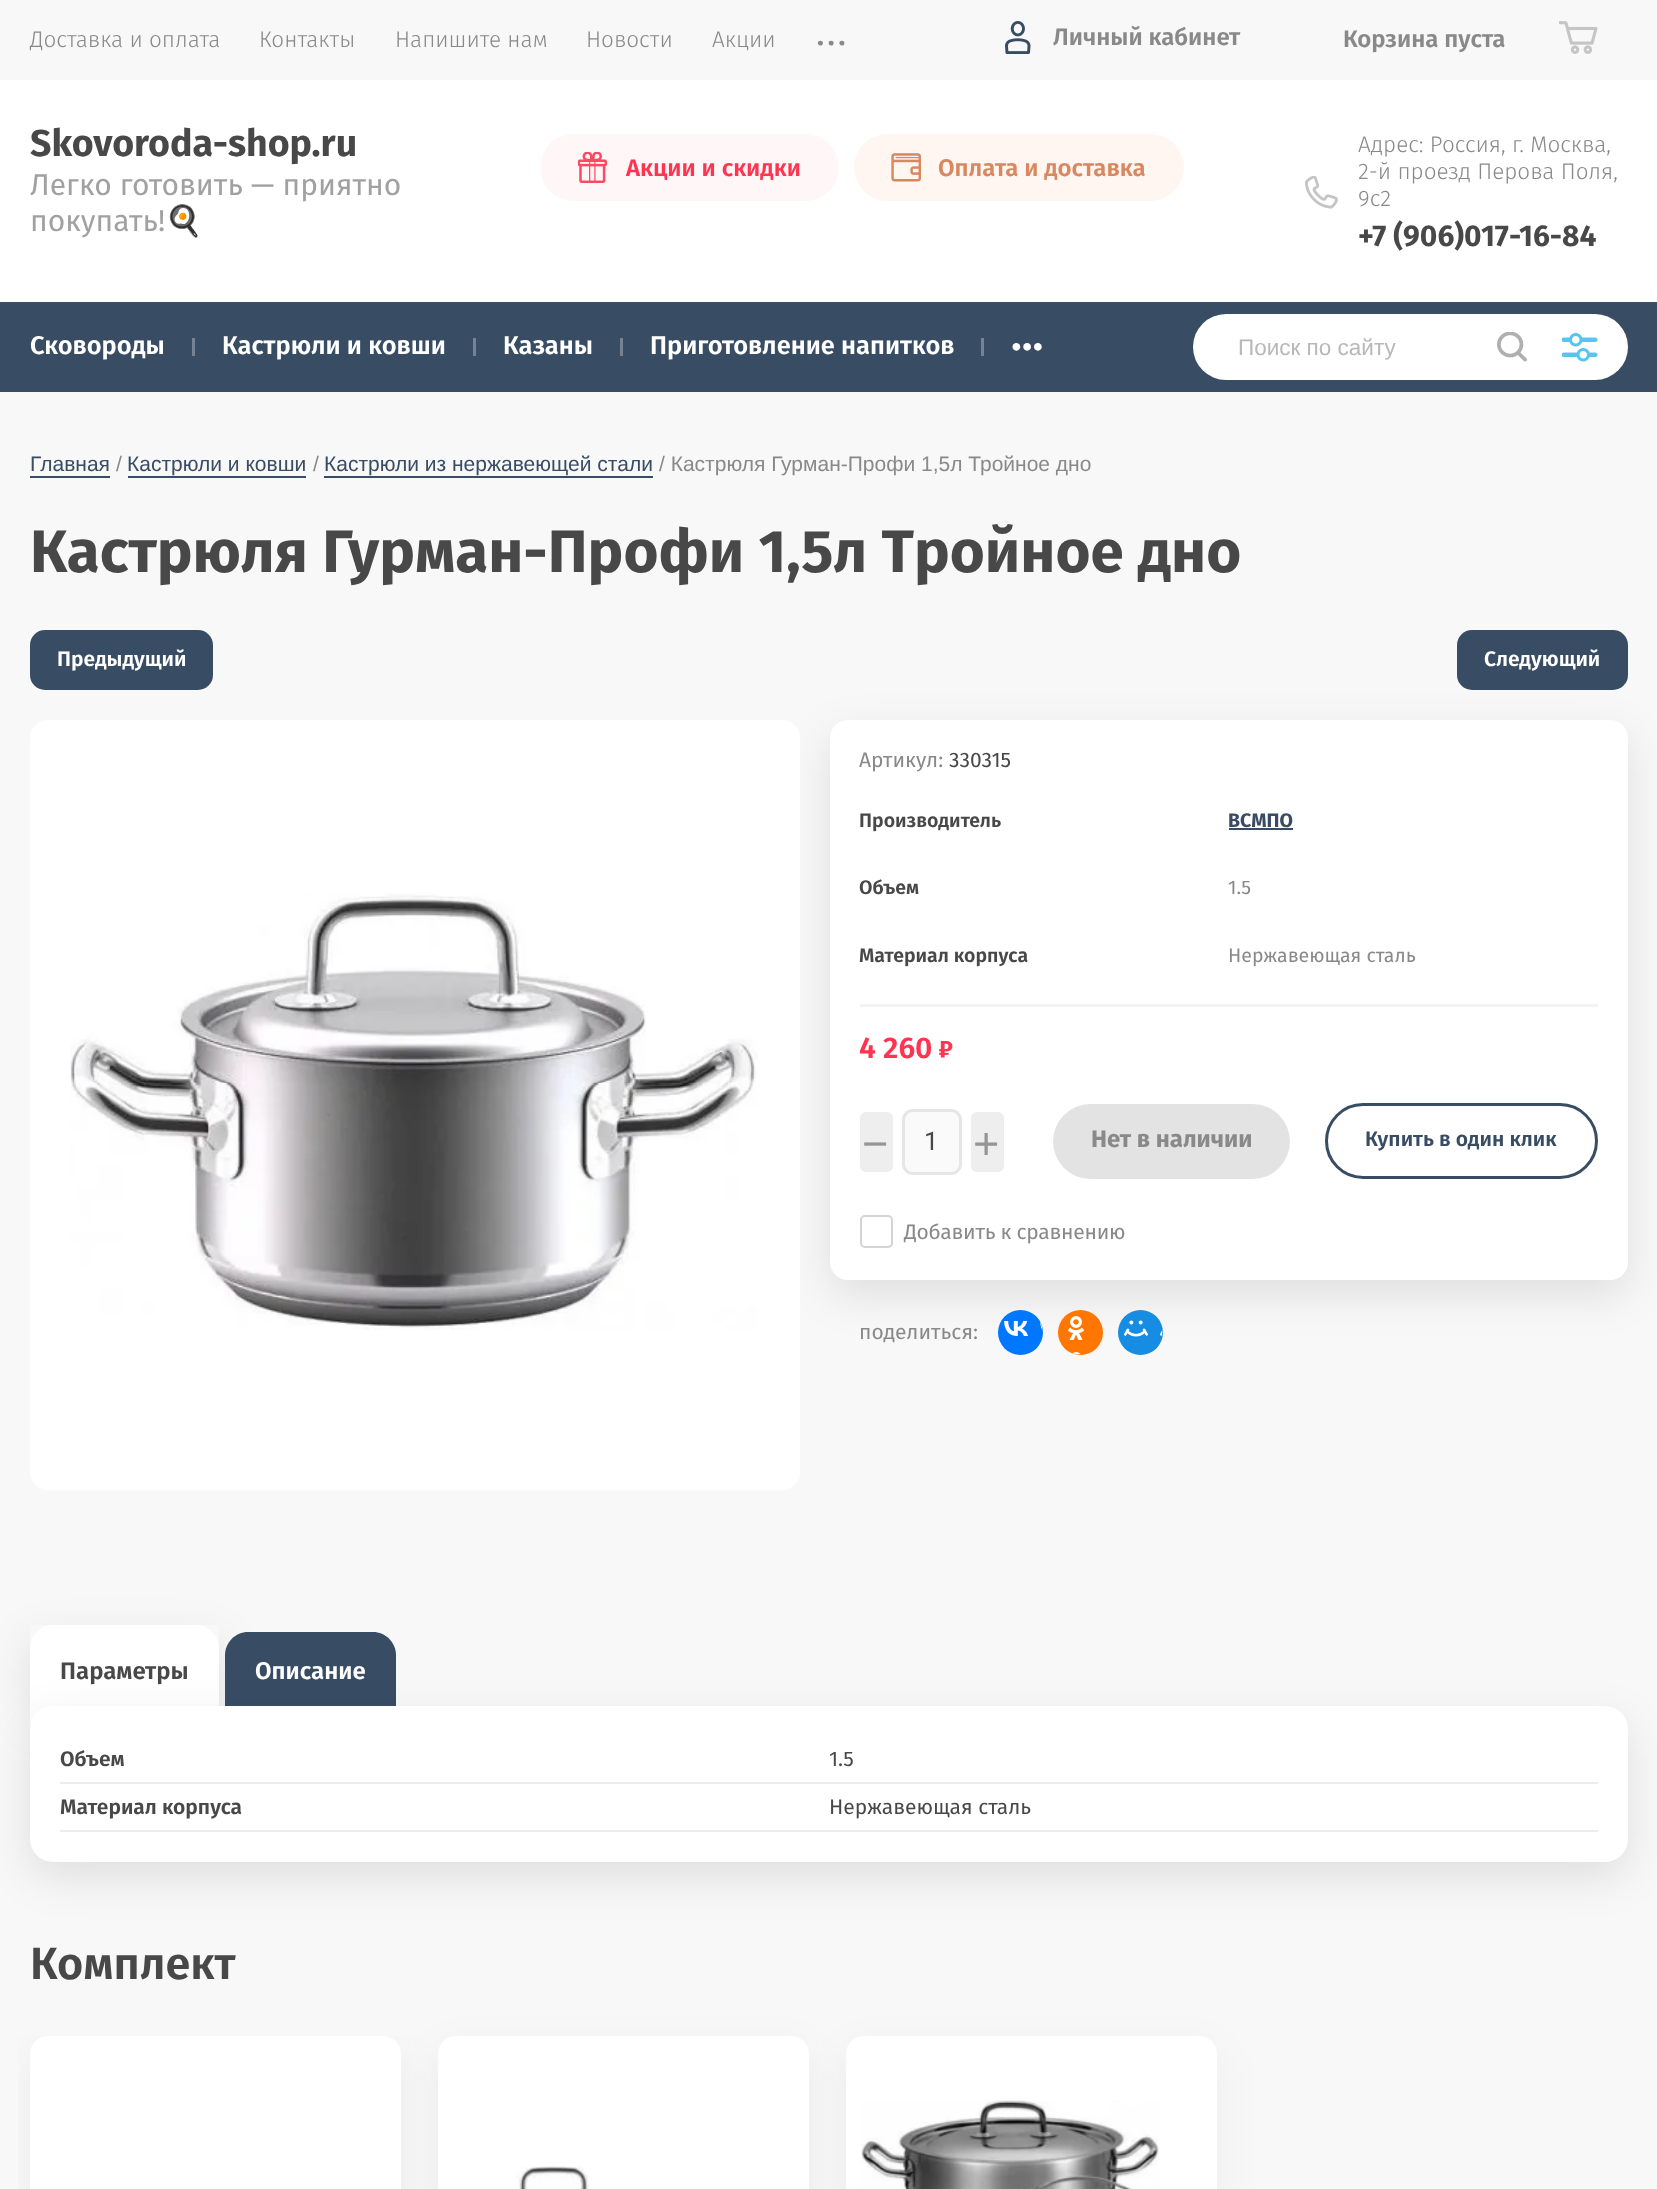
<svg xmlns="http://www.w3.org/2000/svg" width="1657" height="2189">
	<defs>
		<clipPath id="clip1"><path d="M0 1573H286V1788H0ZM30 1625H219V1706H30Z" clip-rule="evenodd" /></clipPath>
		<clipPath id="clip2"><rect x="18" y="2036" width="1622" height="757" /></clipPath>
	</defs>
	<rect width="100%" height="100%" fill="#FFFFFF" />
	<rect x="0" y="0" width="1657" height="80" fill="#F8F8F8" />
	<g font-family="Fira Sans" font-size="22.5" font-weight="300" fill="#898989">
		<text x="30" y="47">Доставка и оплата</text>
		<text x="259" y="47">Контакты</text>
		<text x="395" y="47">Напишите нам</text>
		<text x="586" y="47">Новости</text>
		<text x="712" y="47">Акции</text>
	</g>
	<text x="815" y="45" font-family="Fira Sans" font-size="52" font-weight="300" fill="#898989">...</text>
	<image x="1005" y="21" width="26" height="33" href="assets/img1.png" />
	<text x="1053" y="45" font-family="Fira Sans" font-size="24" font-weight="600" fill="#898989">Личный кабинет</text>
	<image x="1559" y="21" width="39" height="33" href="assets/img2.png" />
	<text x="1343" y="47" font-family="Fira Sans" font-size="24" font-weight="600" fill="#898989">Корзина пуста</text>
	<text x="30" y="156" font-family="Fira Sans" font-size="37.5" font-weight="700" fill="#484848">Skovoroda-shop.ru</text>
	<g font-family="Fira Sans" font-size="30" fill="#A2A1A1">
		<text x="30" y="195">Легко готовить — приятно</text>
		<text x="30" y="231">покупать!</text>
	</g>
	<text x="165" y="231" font-family="Noto Color Emoji" font-size="30" fill="#A2A1A1">🍳</text>
	<rect x="540" y="134" width="299" height="67" rx="33.5" fill="#FFF6F7" />
	<image x="578" y="152" width="30" height="31" href="assets/img3.png" />
	<text x="626" y="176" font-family="Fira Sans" font-size="24" font-weight="600" fill="#FF3451">Акции и скидки</text>
	<rect x="854" y="134" width="330" height="67" rx="33.5" fill="#FFF6F1" />
	<image x="891" y="153" width="30" height="29" href="assets/img4.png" />
	<text x="938" y="176" font-family="Fira Sans" font-size="24" font-weight="600" fill="#D88861">Оплата и доставка</text>
	<image x="1305" y="176" width="33" height="33" href="assets/img5.png" />
	<g font-family="Fira Sans" font-size="22.5" font-weight="300" fill="#898989">
		<text x="1358" y="152">Адрес: Россия, г. Москва,</text>
		<text x="1358" y="179">2-й проезд Перова Поля,</text>
		<text x="1358" y="206">9с2</text>
	</g>
	<text x="1358" y="246" font-family="Fira Sans" font-size="30" font-weight="700" fill="#484848">+7 (906)017-16-84</text>
	<rect x="0" y="392" width="1657" height="1797" fill="#F8F8F8" />
	<rect x="0" y="302" width="1657" height="90" fill="#384C64" />
	<text x="30" y="354" font-family="Fira Sans" font-size="25.5" font-weight="600" fill="#FFFFFF">Сковороды</text>
	<rect x="192" y="338" width="3" height="18" fill="#748293" />
	<text x="222" y="354" font-family="Fira Sans" font-size="25.5" font-weight="600" fill="#FFFFFF">Кастрюли и ковши</text>
	<rect x="473" y="338" width="3" height="18" fill="#748293" />
	<text x="503" y="354" font-family="Fira Sans" font-size="25.5" font-weight="600" fill="#FFFFFF">Казаны</text>
	<rect x="620" y="338" width="3" height="18" fill="#748293" />
	<text x="650" y="354" font-family="Fira Sans" font-size="25.5" font-weight="600" fill="#FFFFFF">Приготовление напитков</text>
	<rect x="981" y="338" width="3" height="18" fill="#748293" />
	<text x="1011" y="350" font-family="Fira Sans" font-size="45" font-weight="600" fill="#FFFFFF">...</text>
	<rect x="1193" y="314" width="435" height="66" rx="33" fill="#FFFFFF" />
	<text x="1238" y="355" font-family="Liberation Sans" font-size="22.5" fill="#B8B8B8">Поиск по сайту</text>
	<image x="1497" y="332" width="30" height="30" href="assets/img6.png" />
	<image x="1562" y="333" width="36" height="29" href="assets/img7.png" />
	<text x="30" y="471" font-family="Liberation Sans" font-size="21" fill="#384C64">Главная</text>
	<rect x="30" y="476" width="80" height="2" fill="#384C64" />
	<text x="116" y="471" font-family="Liberation Sans" font-size="21" fill="#898989">/</text>
	<text x="127" y="471" font-family="Liberation Sans" font-size="21" fill="#384C64">Кастрюли и ковши</text>
	<rect x="128" y="476" width="178" height="2" fill="#384C64" />
	<text x="313" y="471" font-family="Liberation Sans" font-size="21" fill="#898989">/</text>
	<text x="324" y="471" font-family="Liberation Sans" font-size="21" fill="#384C64">Кастрюли из нержавеющей стали</text>
	<rect x="324" y="476" width="329" height="2" fill="#384C64" />
	<text x="659" y="471" font-family="Liberation Sans" font-size="21" fill="#898989">/ Кастрюля Гурман-Профи 1,5л Тройное дно</text>
	<text x="30" y="572" font-family="Fira Sans" font-size="60" font-weight="700" fill="#484848">Кастрюля Гурман-Профи 1,5л Тройное дно</text>
	<rect x="30" y="630" width="183" height="60" rx="15" fill="#384C64" />
	<text x="57" y="666" font-family="Fira Sans" font-size="21" font-weight="600" fill="#FFFFFF">Предыдущий</text>
	<rect x="1457" y="630" width="171" height="60" rx="15" fill="#384C64" />
	<text x="1484" y="666" font-family="Fira Sans" font-size="21" font-weight="600" fill="#FFFFFF">Следующий</text>
	<rect x="830" y="735" width="798" height="560" rx="18" fill="#000000" fill-opacity="0.1" filter="blur(22px)" />
	<rect x="30" y="720" width="770" height="770" rx="18" fill="#FFFFFF" />
	<image x="70" y="893" width="688" height="437" href="assets/img8.png" />
	<rect x="830" y="720" width="798" height="560" rx="18" fill="#FFFFFF" />
	<text x="859" y="767" font-family="Fira Sans" font-size="21" fill="#898989">Артикул:</text>
	<text x="949" y="767" font-family="Fira Sans" font-size="21" fill="#484848">330315</text>
	<text x="859" y="827" font-family="Fira Sans" font-size="19.5" font-weight="600" fill="#484848">Производитель</text>
	<text x="1228" y="827" font-family="Fira Sans" font-size="19.5" font-weight="700" fill="#384C64">ВСМПО</text>
	<rect x="1229" y="828" width="64" height="2" fill="#384C64" />
	<text x="859" y="894" font-family="Fira Sans" font-size="19.5" font-weight="600" fill="#484848">Объем</text>
	<text x="1228" y="894" font-family="Fira Sans" font-size="19.5" fill="#898989">1.5</text>
	<text x="859" y="962" font-family="Fira Sans" font-size="19.5" font-weight="600" fill="#484848">Материал корпуса</text>
	<text x="1228" y="962" font-family="Fira Sans" font-size="19.5" fill="#898989">Нержавеющая сталь</text>
	<rect x="860" y="1004" width="738" height="3" fill="#F3F3F3" />
	<text x="859" y="1058" font-family="Fira Sans" font-size="30" font-weight="600" fill="#FF3451">4 260</text>
	<image x="939" y="1041" width="14" height="17" href="assets/img9.png" />
	<rect x="860" y="1112" width="33" height="60" rx="6" fill="#EEEEEE" />
	<text x="862" y="1159" font-family="Liberation Sans" font-size="45" fill="#959595">−</text>
	<rect x="903.5" y="1110.5" width="57" height="63" rx="9.5" fill="#FAFAFA" stroke="#E6E6E6" stroke-width="3" />
	<text x="924" y="1150" font-family="Roboto" font-size="25.5" fill="#484848">1</text>
	<rect x="971" y="1112" width="33" height="60" rx="6" fill="#EEEEEE" />
	<text x="973" y="1159" font-family="Liberation Sans" font-size="45" fill="#959595">+</text>
	<rect x="1053" y="1104" width="237" height="75" rx="37.5" fill="#E3E3E3" />
	<text x="1091" y="1147" font-family="Fira Sans" font-size="24" font-weight="700" fill="#898989">Нет в наличии</text>
	<rect x="1326.5" y="1104.5" width="270" height="73" rx="36.5" fill="none" stroke="#384C64" stroke-width="3" />
	<text x="1365" y="1146" font-family="Fira Sans" font-size="21" font-weight="600" fill="#384C64">Купить в один клик</text>
	<rect x="861" y="1216" width="31" height="31" rx="4" fill="none" stroke="#D4D4D4" stroke-width="2" />
	<text x="904" y="1239" font-family="Fira Sans" font-size="21" letter-spacing="-0.25" fill="#898989">Добавить к сравнению</text>
	<text x="859" y="1339" font-family="Fira Sans" font-size="21" fill="#898989">поделиться:</text>
	<circle cx="1020.5" cy="1332.5" r="22.5" fill="#0077FF" />
	<image x="1004" y="1321" width="39" height="15" href="assets/img10.png" />
	<circle cx="1080.5" cy="1332.5" r="22.5" fill="#FF7700" />
	<image x="1068" y="1316" width="16" height="39" href="assets/img11.png" />
	<circle cx="1140.5" cy="1332.5" r="22.5" fill="#168DE2" />
	<image x="1124" y="1320" width="39" height="17" href="assets/img12.png" />
	<g clip-path="url(#clip1)">
		<rect x="30" y="1640" width="189" height="81" fill="#000000" fill-opacity="0.1" filter="blur(22px)" />
	</g>
	<path d="M53 1625H196C208.5 1625 219 1635.5 219 1648V1724H30V1648C30 1635.5 40.5 1625 53 1625Z" fill="#FFFFFF" />
	<text x="60" y="1679" font-family="Fira Sans" font-size="24" font-weight="600" fill="#484848">Параметры</text>
	<path d="M248 1632H373C385.5 1632 396 1642.5 396 1655V1724H225V1655C225 1642.5 235.5 1632 248 1632Z" fill="#384C64" />
	<text x="255" y="1679" font-family="Fira Sans" font-size="24" font-weight="600" fill="#FFFFFF">Описание</text>
	<rect x="30" y="1721" width="1598" height="156" rx="23" fill="#000000" fill-opacity="0.1" filter="blur(22px)" />
	<rect x="30" y="1706" width="1598" height="156" rx="23" fill="#FFFFFF" />
	<rect x="60" y="1782" width="1538" height="2" fill="#ECECEC" />
	<text x="60" y="1766" font-family="Fira Sans" font-size="21" font-weight="600" fill="#484848">Объем</text>
	<text x="829" y="1766" font-family="Fira Sans" font-size="21" fill="#484848">1.5</text>
	<rect x="60" y="1830" width="1538" height="2" fill="#ECECEC" />
	<text x="60" y="1814" font-family="Fira Sans" font-size="21" font-weight="600" fill="#484848">Материал корпуса</text>
	<text x="829" y="1814" font-family="Fira Sans" font-size="21" fill="#484848">Нержавеющая сталь</text>
	<text x="30" y="1979" font-family="Fira Sans" font-size="45" font-weight="600" fill="#484848">Комплект</text>
	<g clip-path="url(#clip2)">
		<rect x="30" y="2051" width="371" height="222" rx="18" fill="#000000" fill-opacity="0.05" filter="blur(22px)" />
	</g>
	<rect x="30" y="2036" width="371" height="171" rx="18" fill="#FFFFFF" />
	<rect x="438" y="2051" width="371" height="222" rx="18" fill="#000000" fill-opacity="0.05" filter="blur(22px)" />
	<rect x="438" y="2036" width="371" height="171" rx="18" fill="#FFFFFF" />
	<image x="516" y="2166" width="73" height="23" href="assets/img13.png" />
	<rect x="846" y="2051" width="371" height="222" rx="18" fill="#000000" fill-opacity="0.05" filter="blur(22px)" />
	<rect x="846" y="2036" width="371" height="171" rx="18" fill="#FFFFFF" />
	<image x="861" y="2100" width="298" height="89" href="assets/img14.png" />
</svg>
